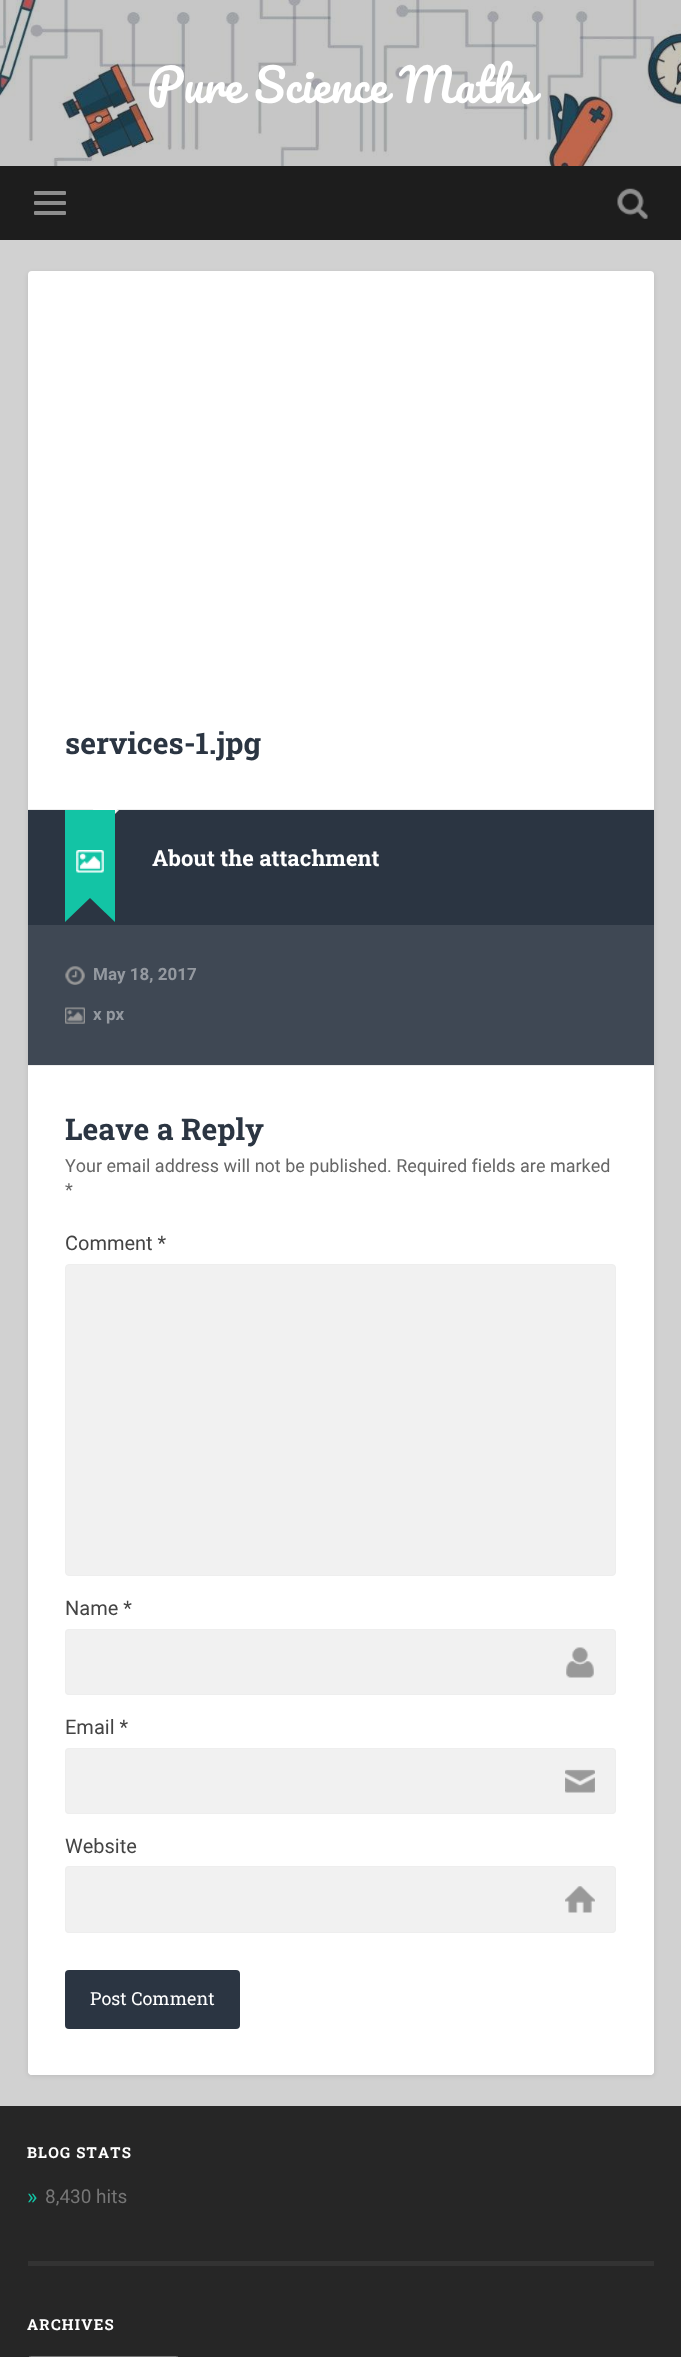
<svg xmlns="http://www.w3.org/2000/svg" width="681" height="2357">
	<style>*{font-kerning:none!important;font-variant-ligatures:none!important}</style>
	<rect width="100%" height="100%" fill="#D1D1D1" />
	<image x="0" y="0" width="681" height="166" href="assets/img1.png" />
	<text x="147" y="103" font-family="Pacifico" font-size="45" fill="#FFFFFF">Pure Science Maths</text>
	<rect x="0" y="166" width="681" height="74" fill="#1D1D1D" />
	<rect x="34" y="191" width="32" height="4" rx="1" fill="#8E8E8E" />
	<rect x="34" y="201" width="32" height="4" rx="1" fill="#8E8E8E" />
	<rect x="34" y="211" width="32" height="4" rx="1" fill="#8E8E8E" />
	<image x="617" y="188" width="31" height="31" href="assets/img2.png" />
	<rect x="28" y="273" width="626" height="1803" rx="4" fill="#000000" fill-opacity="0.1" filter="blur(2.5px)" />
	<rect x="28" y="271" width="626" height="1804" rx="4" fill="#FFFFFF" />
	<rect x="28" y="809" width="626" height="1" fill="#EEEEEE" />
	<text x="65" y="754" font-family="Roboto Slab" font-size="30" font-weight="700" fill="#2B3542">services-1.jpg</text>
	<rect x="28" y="810" width="626" height="115" fill="#2B3542" />
	<path d="M90 809H120L105 824Z" fill="#EEEEEE" />
	<path d="M91 807.5H119L105 821Z" fill="#FFFFFF" />
	<path d="M115 872V922L90 898ZM65 922V872L90 898Z" fill="#13C4A5" />
	<rect x="65" y="810" width="50" height="88" fill="#13C4A5" />
	<image x="76" y="850" width="28" height="23" href="assets/img3.png" />
	<text x="152" y="866" font-family="Roboto Slab" font-size="22" font-weight="700" fill="#FFFFFF">About the attachment</text>
	<rect x="28" y="925" width="626" height="140" fill="#3F4854" />
	<image x="65" y="966" width="20" height="19" href="assets/img4.png" />
	<text x="93" y="980" font-family="Roboto" font-size="17" font-weight="700" fill="#9499A0">May 18, 2017</text>
	<image x="65" y="1007" width="20" height="17" href="assets/img5.png" />
	<text x="93" y="1020" font-family="Roboto" font-size="17" font-weight="700" fill="#9499A0">x px</text>
	<path d="M28 1065H654V2071C654 2073 652 2075 650 2075H32C30 2075 28 2073 28 2071Z" fill="#FFFFFF" />
	<rect x="28" y="1065" width="626" height="1" fill="#EEEEEE" />
	<text x="65" y="1140" font-family="Roboto Slab" font-size="30" font-weight="700" fill="#2B3542">Leave a Reply</text>
	<g font-family="Roboto" font-size="18" fill="#666666">
		<text x="65" y="1172">Your email address will not be published. Required fields are marked</text>
		<text x="65" y="1196">*</text>
	</g>
	<text x="65" y="1250" font-family="Roboto" font-size="20" fill="#444444">Comment *</text>
	<rect x="65.5" y="1264.5" width="550" height="311" rx="3.5" fill="#F1F1F1" stroke="#EEEEEE" />
	<text x="65" y="1615" font-family="Roboto" font-size="20" fill="#444444">Name *</text>
	<rect x="65" y="1629" width="551" height="66" rx="4" fill="#F1F1F1" />
	<image x="566" y="1647" width="28" height="31" href="assets/img6.png" />
	<rect x="65.5" y="1629.5" width="550" height="65" rx="3.5" fill="none" stroke="#EEEEEE" />
	<text x="65" y="1734" font-family="Roboto" font-size="20" fill="#444444">Email *</text>
	<rect x="65" y="1748" width="551" height="66" rx="4" fill="#F1F1F1" />
	<image x="565" y="1769" width="30" height="24" href="assets/img7.png" />
	<rect x="65.5" y="1748.5" width="550" height="65" rx="3.5" fill="none" stroke="#EEEEEE" />
	<text x="65" y="1853" font-family="Roboto" font-size="20" fill="#444444">Website</text>
	<rect x="65" y="1866" width="551" height="67" rx="4" fill="#F1F1F1" />
	<image x="565" y="1886" width="30" height="27" href="assets/img8.png" />
	<rect x="65.5" y="1866.5" width="550" height="66" rx="3.5" fill="none" stroke="#EEEEEE" />
	<rect x="65" y="1970" width="175" height="59" rx="4" fill="#2B3542" />
	<text x="90" y="2005" font-family="Roboto Slab" font-size="18" fill="#FFFFFF">Post Comment</text>
	<rect x="0" y="2106" width="681" height="251" fill="#262626" />
	<text x="27" y="2158" font-family="Roboto Slab" font-size="15" font-weight="700" letter-spacing="1.25" fill="#FFFFFF">BLOG STATS</text>
	<text x="27" y="2204" font-family="Roboto" font-size="22" fill="#13C4A5">»</text>
	<text x="45" y="2203" font-family="Roboto" font-size="19" fill="#767676">8,430 hits</text>
	<rect x="28" y="2261" width="626" height="5" fill="#333333" />
	<text x="27" y="2330" font-family="Roboto Slab" font-size="15" font-weight="700" letter-spacing="1.25" fill="#FFFFFF">ARCHIVES</text>
	<rect x="28.5" y="2356.5" width="150" height="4" rx="2" fill="none" stroke="#767676" />
</svg>
